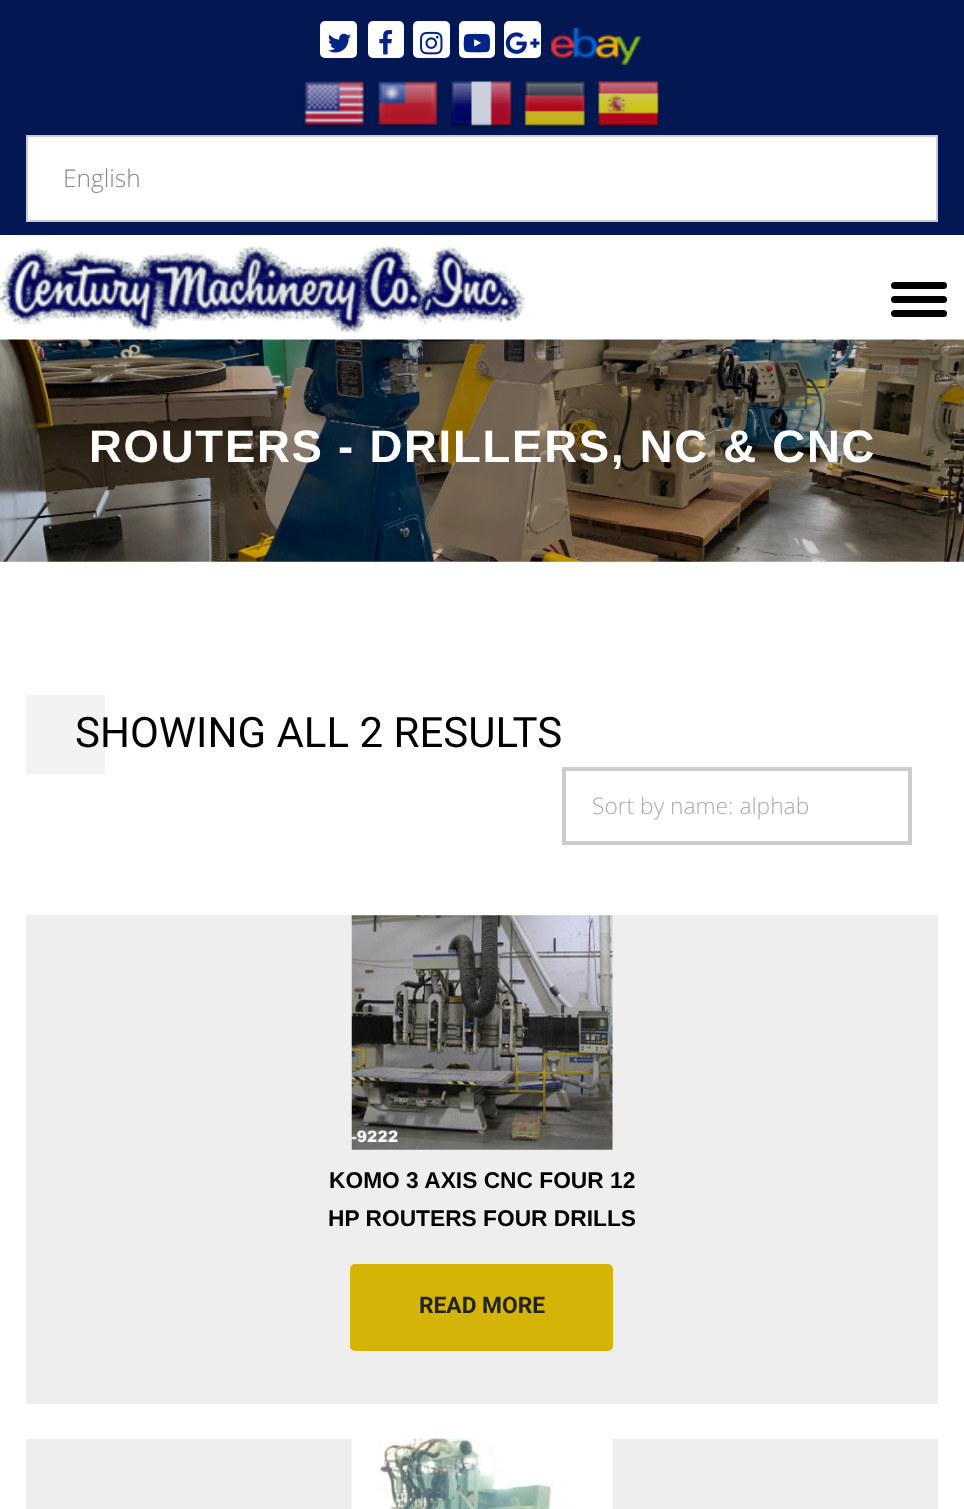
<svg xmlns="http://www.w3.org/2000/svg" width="964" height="1509">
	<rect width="100%" height="100%" fill="#FFFFFF" />
	<rect x="0" y="0" width="964" height="235" fill="#031752" />
	<rect x="320" y="21" width="37" height="37" rx="5" fill="#FFFFFF" />
	<image x="328" y="33" width="23" height="20" href="assets/img1.png" />
	<rect x="368" y="21" width="36" height="37" rx="5" fill="#FFFFFF" />
	<image x="379" y="30" width="14" height="25" href="assets/img2.png" />
	<rect x="413" y="21" width="37" height="37" rx="5" fill="#FFFFFF" />
	<image x="420" y="31" width="23" height="24" href="assets/img3.png" />
	<rect x="459" y="21" width="36" height="37" rx="5" fill="#FFFFFF" />
	<image x="463" y="33" width="27" height="20" href="assets/img4.png" />
	<rect x="504" y="21" width="37" height="37" rx="5" fill="#FFFFFF" />
	<image x="505" y="32" width="35" height="22" href="assets/img5.png" />
	<image x="551" y="28" width="90" height="37" href="assets/img6.png" />
	<image x="303" y="81" width="63" height="47" href="assets/img7.png" />
	<image x="376" y="81" width="63" height="47" href="assets/img8.png" />
	<image x="450" y="81" width="63" height="48" href="assets/img9.png" />
	<image x="523" y="81" width="63" height="48" href="assets/img10.png" />
	<image x="597" y="81" width="63" height="48" href="assets/img11.png" />
	<rect x="27" y="136" width="910" height="85" fill="#FFFFFF" stroke="#CCCCCC" stroke-width="2" />
	<text x="63" y="187" font-family="Open Sans" font-size="24.5" font-weight="300" fill="#888888">English</text>
	<image x="0" y="246" width="525" height="87" href="assets/img12.png" />
	<rect x="891" y="282" width="56" height="7" rx="3.5" fill="#000000" />
	<rect x="891" y="296" width="56" height="7" rx="3.5" fill="#000000" />
	<rect x="891" y="310" width="56" height="7" rx="3.5" fill="#000000" />
	<image x="0" y="339" width="964" height="223" href="assets/img13.png" />
	<text x="89" y="462" font-family="Liberation Sans" font-size="45.5" font-weight="700" letter-spacing="1.75" fill="#FFFFFF">ROUTERS - DRILLERS, NC &amp; CNC</text>
	<rect x="26" y="695" width="79" height="79" fill="#F2F2F2" />
	<text x="75" y="747" font-family="Roboto" font-size="42" fill="#000000">SHOWING ALL 2 RESULTS</text>
	<rect x="564" y="769" width="346" height="74" fill="none" stroke="#CCCCCC" stroke-width="4" />
	<text x="592" y="814" font-family="Open Sans" font-size="22.75" font-weight="300" fill="#AAAAAA">Sort by name: alphab</text>
	<rect x="26" y="915" width="912" height="489" fill="#EEEEEE" />
	<image x="351" y="915" width="262" height="235" href="assets/img14.png" />
	<g font-family="Liberation Sans" font-size="22.75" font-weight="700" fill="#000000">
		<text x="329" y="1188">KOMO 3 AXIS CNC FOUR 12</text>
		<text x="328" y="1226">HP ROUTERS FOUR DRILLS</text>
	</g>
	<rect x="350" y="1264" width="263" height="87" rx="5" fill="#D4B507" />
	<text x="419" y="1313" font-family="Roboto" font-size="22.75" font-weight="700" fill="#232323">READ MORE</text>
	<rect x="26" y="1439" width="912" height="70" fill="#EEEEEE" />
	<image x="351" y="1438" width="262" height="71" href="assets/img15.png" />
</svg>
